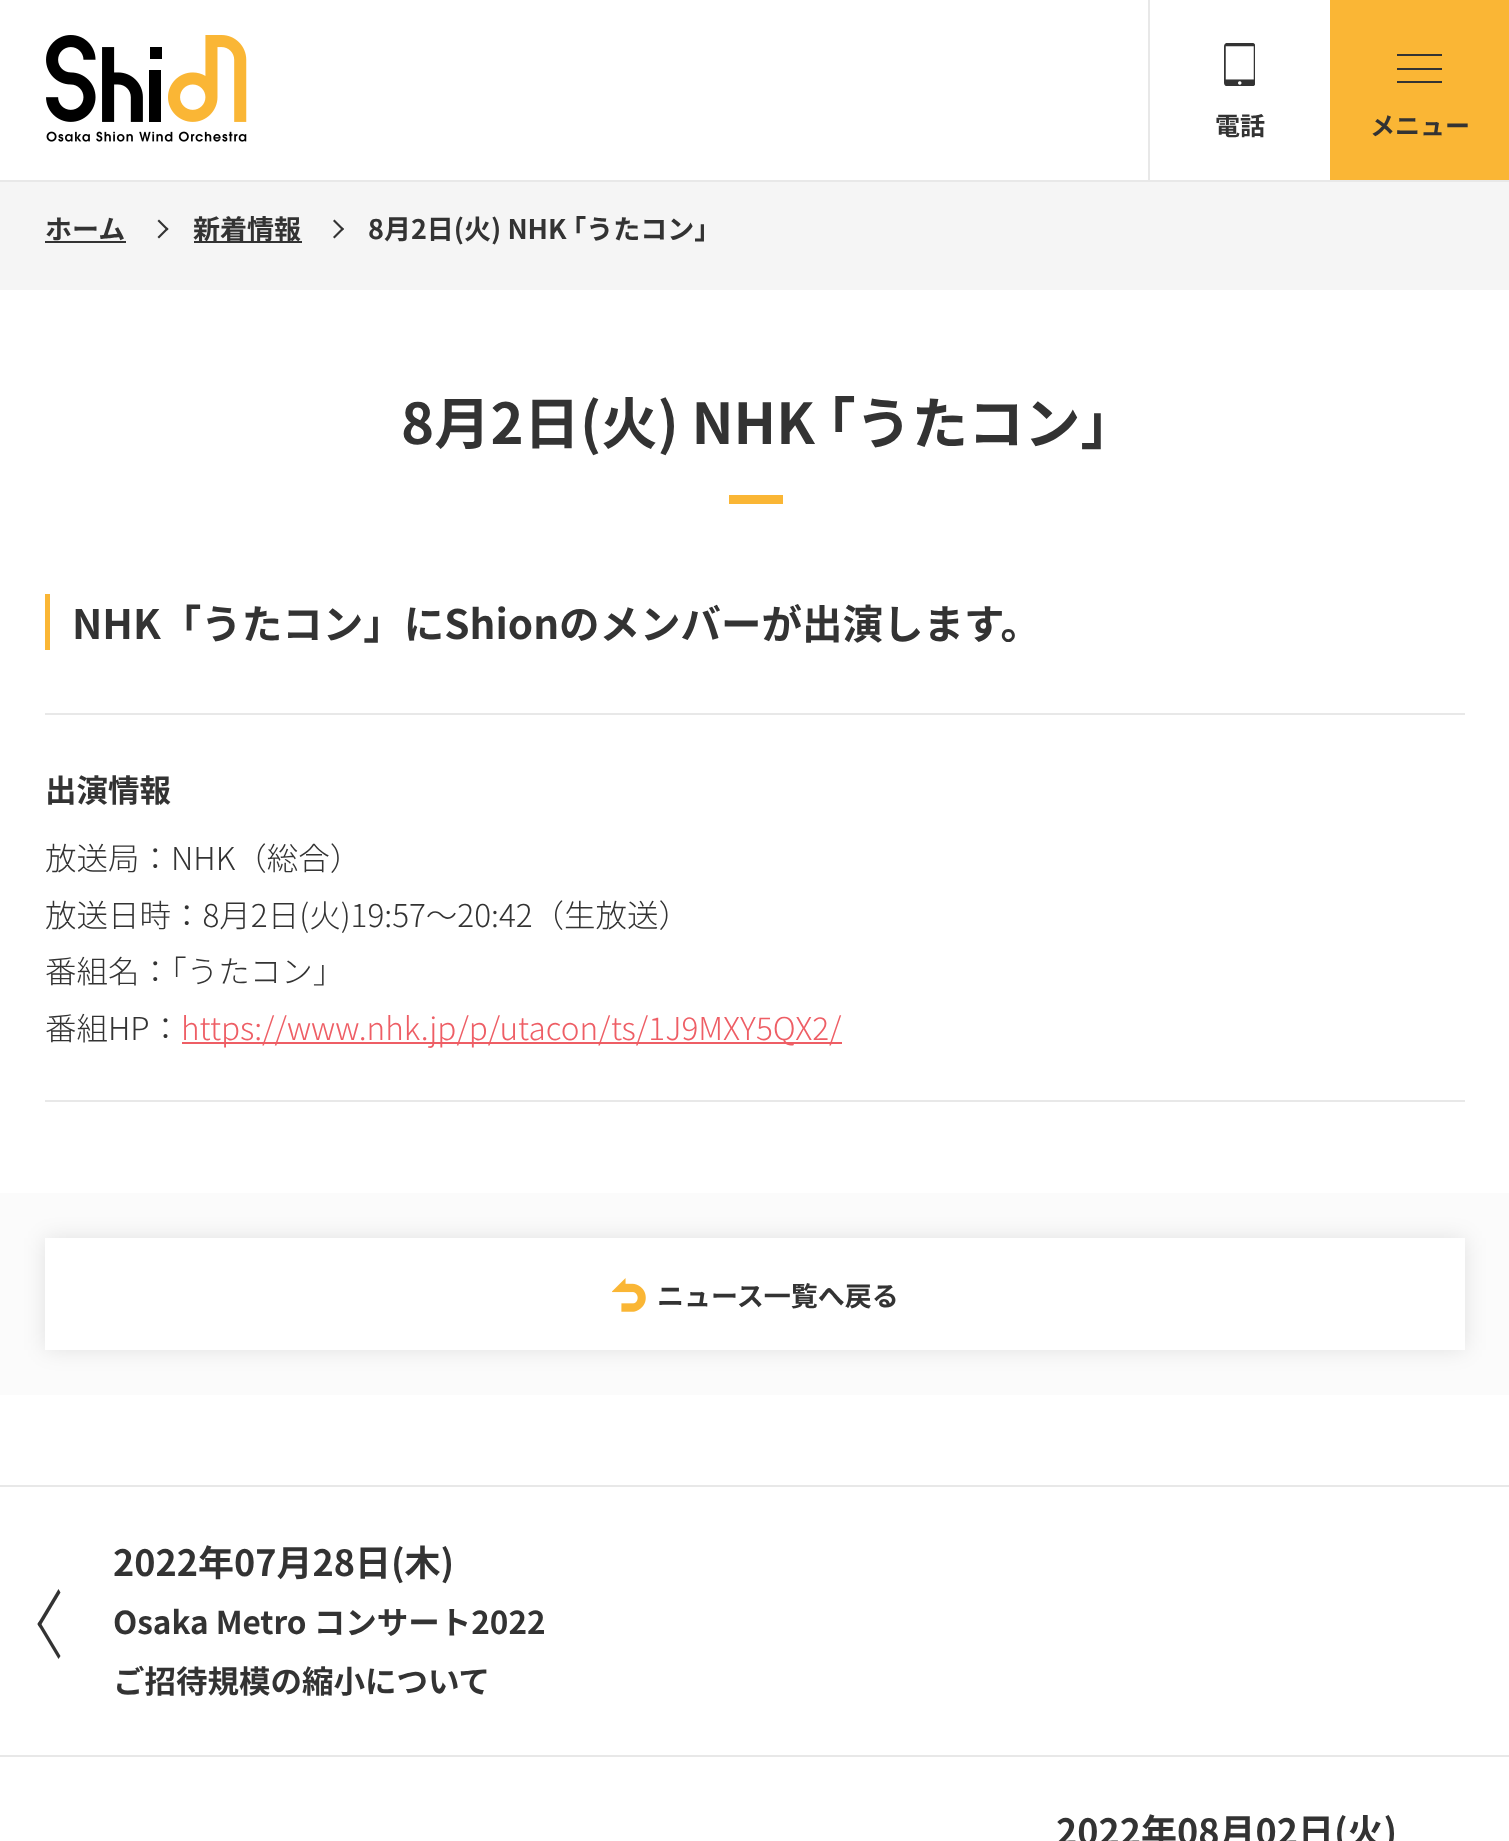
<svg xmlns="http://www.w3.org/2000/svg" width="1509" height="1841">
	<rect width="100%" height="100%" fill="#FFFFFF" />
	<rect x="0" y="180" width="1509" height="2" fill="#E8E8E8" />
	<image x="46" y="35" width="201" height="107" href="assets/img1.png" />
	<rect x="1148" y="0" width="2" height="180" fill="#E8E8E8" />
	<image x="1224" y="43" width="31" height="43" href="assets/img2.png" />
	<text x="1215" y="135" font-family="Noto Sans JP" font-size="25" font-weight="700" fill="#333333">電話</text>
	<rect x="1330" y="0" width="179" height="180" fill="#FAB635" />
	<rect x="1397" y="68" width="45" height="2" fill="#333333" />
	<rect x="1397" y="54" width="45" height="2" fill="#333333" />
	<rect x="1397" y="81" width="45" height="2" fill="#333333" />
	<text x="1370" y="135" font-family="Noto Sans JP" font-size="25" font-weight="700" fill="#333333">メニュー</text>
	<rect x="0" y="182" width="1509" height="108" fill="#F5F5F5" />
	<text x="45" y="239" font-family="Noto Sans JP" font-size="27" font-weight="700" fill="#333333">ホーム</text>
	<rect x="45" y="241" width="81" height="2" fill="#333333" />
	<path d="M157.5 221L159 219.5L168.5 229L167 230.5Z" fill="#333333" />
	<path d="M157.5 237L167 227.5L168.5 229L159 238.5Z" fill="#333333" />
	<rect x="194" y="241" width="108" height="2" fill="#333333" />
	<text x="193" y="239" font-family="Noto Sans JP" font-size="27" font-weight="700" fill="#333333">新着情報</text>
	<path d="M333 221L334.5 219.5L344 229L342.5 230.5Z" fill="#333333" />
	<path d="M333 237L342.5 227.5L344 229L334.5 238.5Z" fill="#333333" />
	<text x="368" y="239" font-family="Noto Sans JP" font-size="27" font-weight="700" fill="#333333">8月2日(火) NHK ｢うたコン｣</text>
	<text x="401" y="444" font-family="Noto Sans JP" font-size="56.25" font-weight="700" fill="#333333">8月2日(火) NHK ｢うたコン｣</text>
	<rect x="729" y="495" width="54" height="9" fill="#FAB635" />
	<rect x="45" y="594" width="5" height="56" fill="#FAB635" />
	<text x="72" y="639" font-family="Noto Sans JP" font-size="40.5" font-weight="700" fill="#333333">NHK「うたコン」にShionのメンバーが出演します。</text>
	<rect x="45" y="713" width="1420" height="2" fill="#E8E8E8" />
	<text x="45" y="802" font-family="Noto Sans JP" font-size="31.5" font-weight="700" fill="#333333">出演情報</text>
	<rect x="45" y="1100" width="1420" height="2" fill="#E8E8E8" />
	<g font-family="Noto Sans JP" font-size="31.5" font-weight="300" fill="#333333">
		<text x="45" y="870">放送局：NHK（総合）</text>
		<text x="45" y="927">放送日時：8月2日(火)19:57〜20:42（生放送）</text>
		<text x="45" y="983">番組名：「うたコン」</text>
		<text x="45" y="1040">番組HP：</text>
	</g>
	<rect x="182" y="1042" width="660" height="2" fill="#EE5E65" />
	<text x="181" y="1040" font-family="Noto Sans JP" font-size="31.5" font-weight="300" fill="#EE5E65">https://www.nhk.jp/p/utacon/ts/1J9MXY5QX2/</text>
	<rect x="0" y="1193" width="1509" height="202" fill="#FBFBFB" />
	<rect x="45" y="1238" width="1420" height="112" fill="#000000" fill-opacity="0.1" filter="blur(11px)" />
	<rect x="45" y="1238" width="1420" height="112" fill="#FFFFFF" />
	<image x="612" y="1278" width="34" height="34" href="assets/img3.png" />
	<text x="657" y="1306" font-family="Noto Sans JP" font-size="27" font-weight="700" fill="#333333">ニュース一覧へ戻る</text>
	<rect x="0" y="1485" width="1509" height="2" fill="#E8E8E8" />
	<rect x="0" y="1755" width="1509" height="2" fill="#E8E8E8" />
	<text x="113" y="1576" font-family="Noto Sans JP" font-size="36" font-weight="700" fill="#333333">2022年07月28日(木)</text>
	<path d="M37.5 1624L58.5 1589L60.5 1592.5L39.5 1627.5Z" fill="#333333" />
	<path d="M37.5 1624L39.5 1621L60.5 1656L58.5 1659Z" fill="#333333" />
	<g font-family="Noto Sans JP" font-size="31.5" font-weight="700" fill="#333333">
		<text x="113" y="1634">Osaka Metro コンサート2022</text>
		<text x="113" y="1693">ご招待規模の縮小について</text>
	</g>
	<text x="1056" y="1845" font-family="Noto Sans JP" font-size="36" font-weight="700" fill="#333333">2022年08月02日(火)</text>
</svg>
